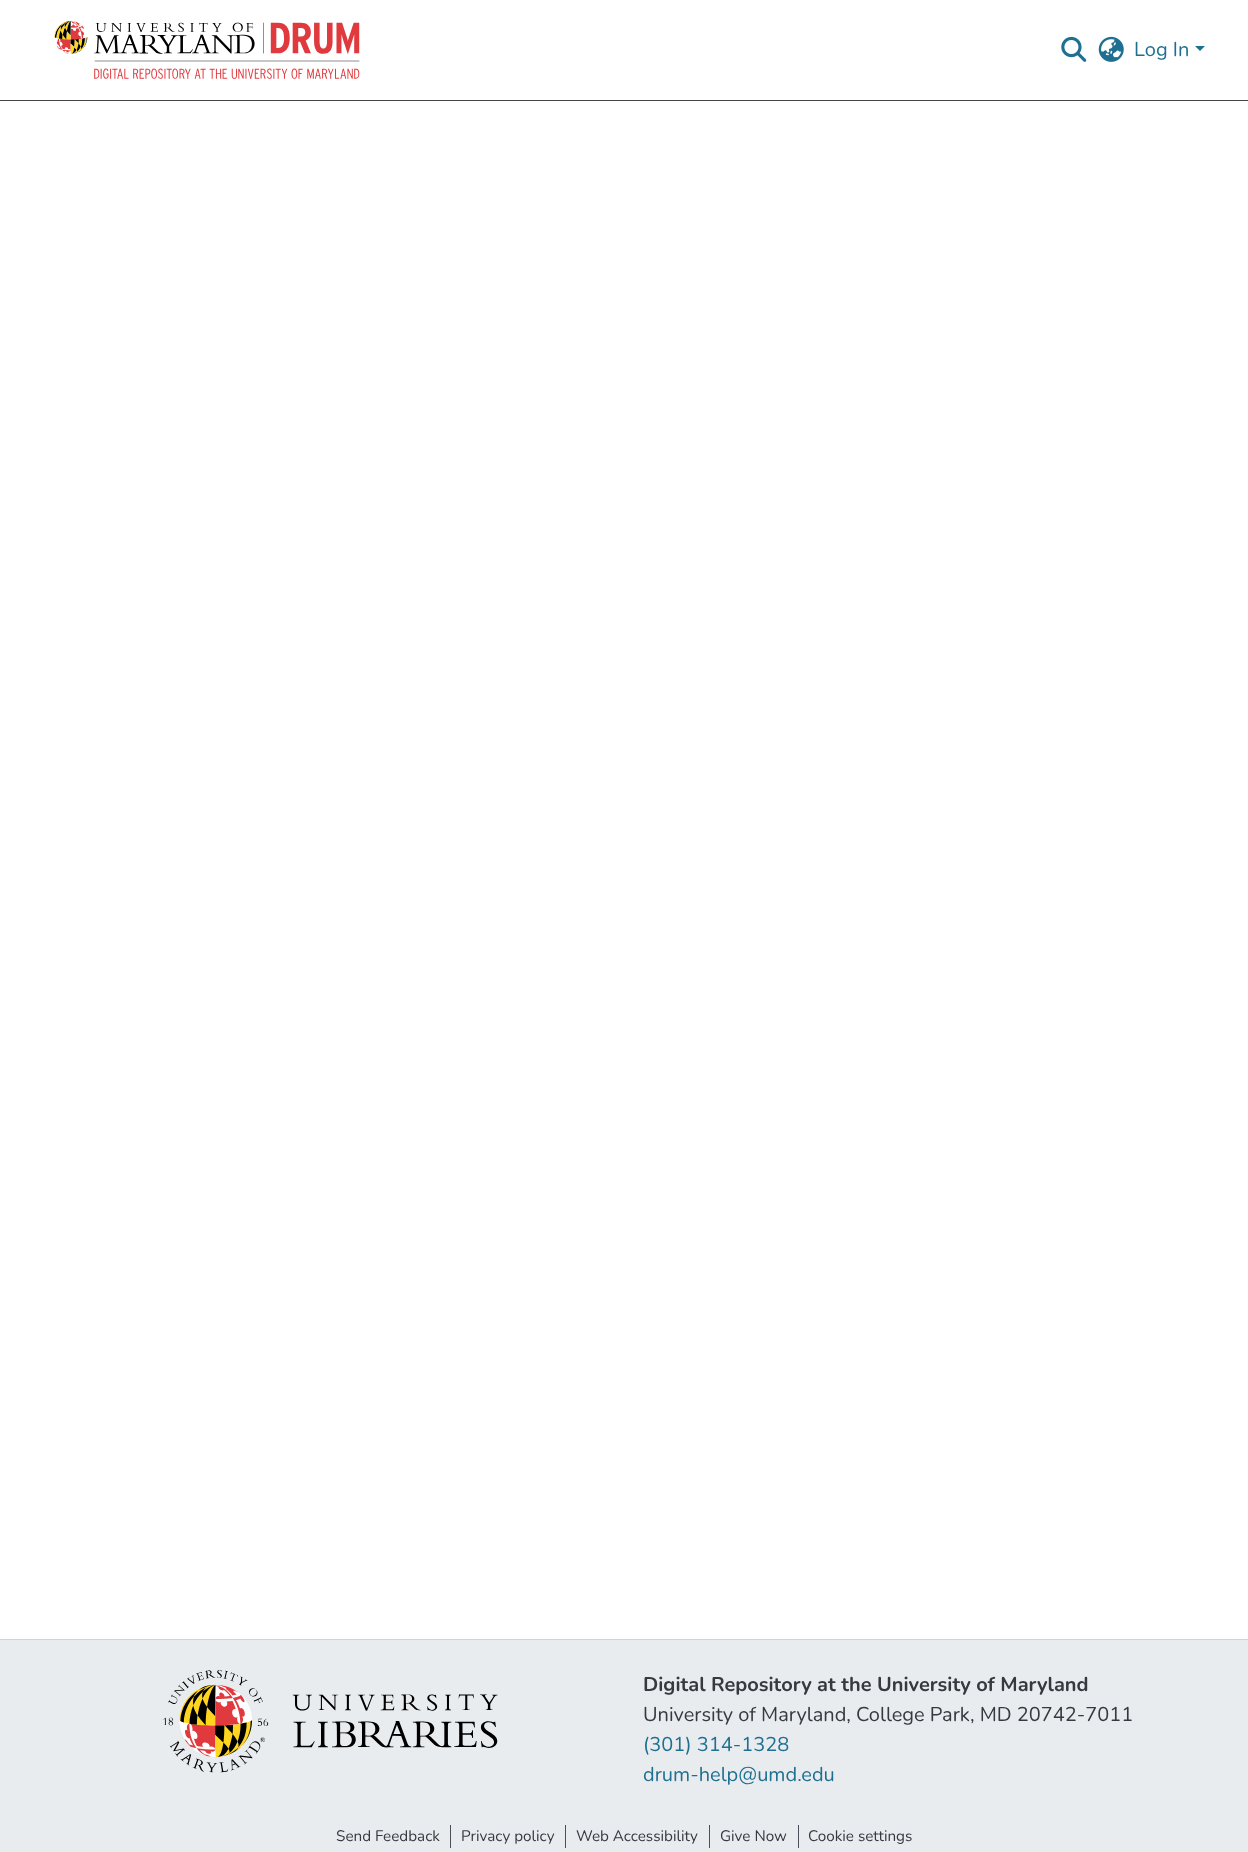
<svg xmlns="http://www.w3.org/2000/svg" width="1248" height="1852">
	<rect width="100%" height="100%" fill="#FFFFFF" />
	<rect x="0" y="100" width="1248" height="1" fill="#454545" />
	<image x="54" y="20" width="306" height="59" href="assets/img1.png" />
	<image x="1061" y="36" width="26" height="26" href="assets/img2.png" />
	<image x="1098" y="36" width="26" height="26" href="assets/img3.png" />
	<text x="1134" y="56" font-family="Nunito" font-size="20" fill="#1E6F90">Log In</text>
	<path d="M1195 46H1205L1200 51Z" fill="#1E6F90" />
	<rect x="0" y="1640" width="1248" height="212" fill="#E9ECEF" />
	<rect x="0" y="1639" width="1248" height="1" fill="#CED4DA" />
	<image x="163" y="1670" width="335" height="103" href="assets/img4.png" />
	<text x="643" y="1691" font-family="Nunito" font-size="20" font-weight="700" fill="#343A40">Digital Repository at the University of Maryland</text>
	<text x="643" y="1721" font-family="Nunito" font-size="20" fill="#343A40">University of Maryland, College Park, MD 20742-7011</text>
	<g font-family="Nunito" font-size="20" fill="#1E6F90">
		<text x="643" y="1751">(301) 314-1328</text>
		<text x="643" y="1781">drum-help@umd.edu</text>
	</g>
	<text x="336" y="1841" font-family="Nunito" font-size="15.25" fill="#343A40">Send Feedback</text>
	<rect x="450" y="1825" width="1" height="23" fill="#495057" />
	<text x="461" y="1841" font-family="Nunito" font-size="15.25" fill="#343A40">Privacy policy</text>
	<rect x="565" y="1825" width="1" height="23" fill="#495057" />
	<text x="576" y="1841" font-family="Nunito" font-size="15.25" fill="#343A40">Web Accessibility</text>
	<rect x="709" y="1825" width="1" height="23" fill="#495057" />
	<text x="720" y="1841" font-family="Nunito" font-size="15.25" fill="#343A40">Give Now</text>
	<rect x="798" y="1825" width="1" height="23" fill="#495057" />
	<text x="808" y="1841" font-family="Nunito" font-size="15.25" fill="#343A40">Cookie settings</text>
</svg>
